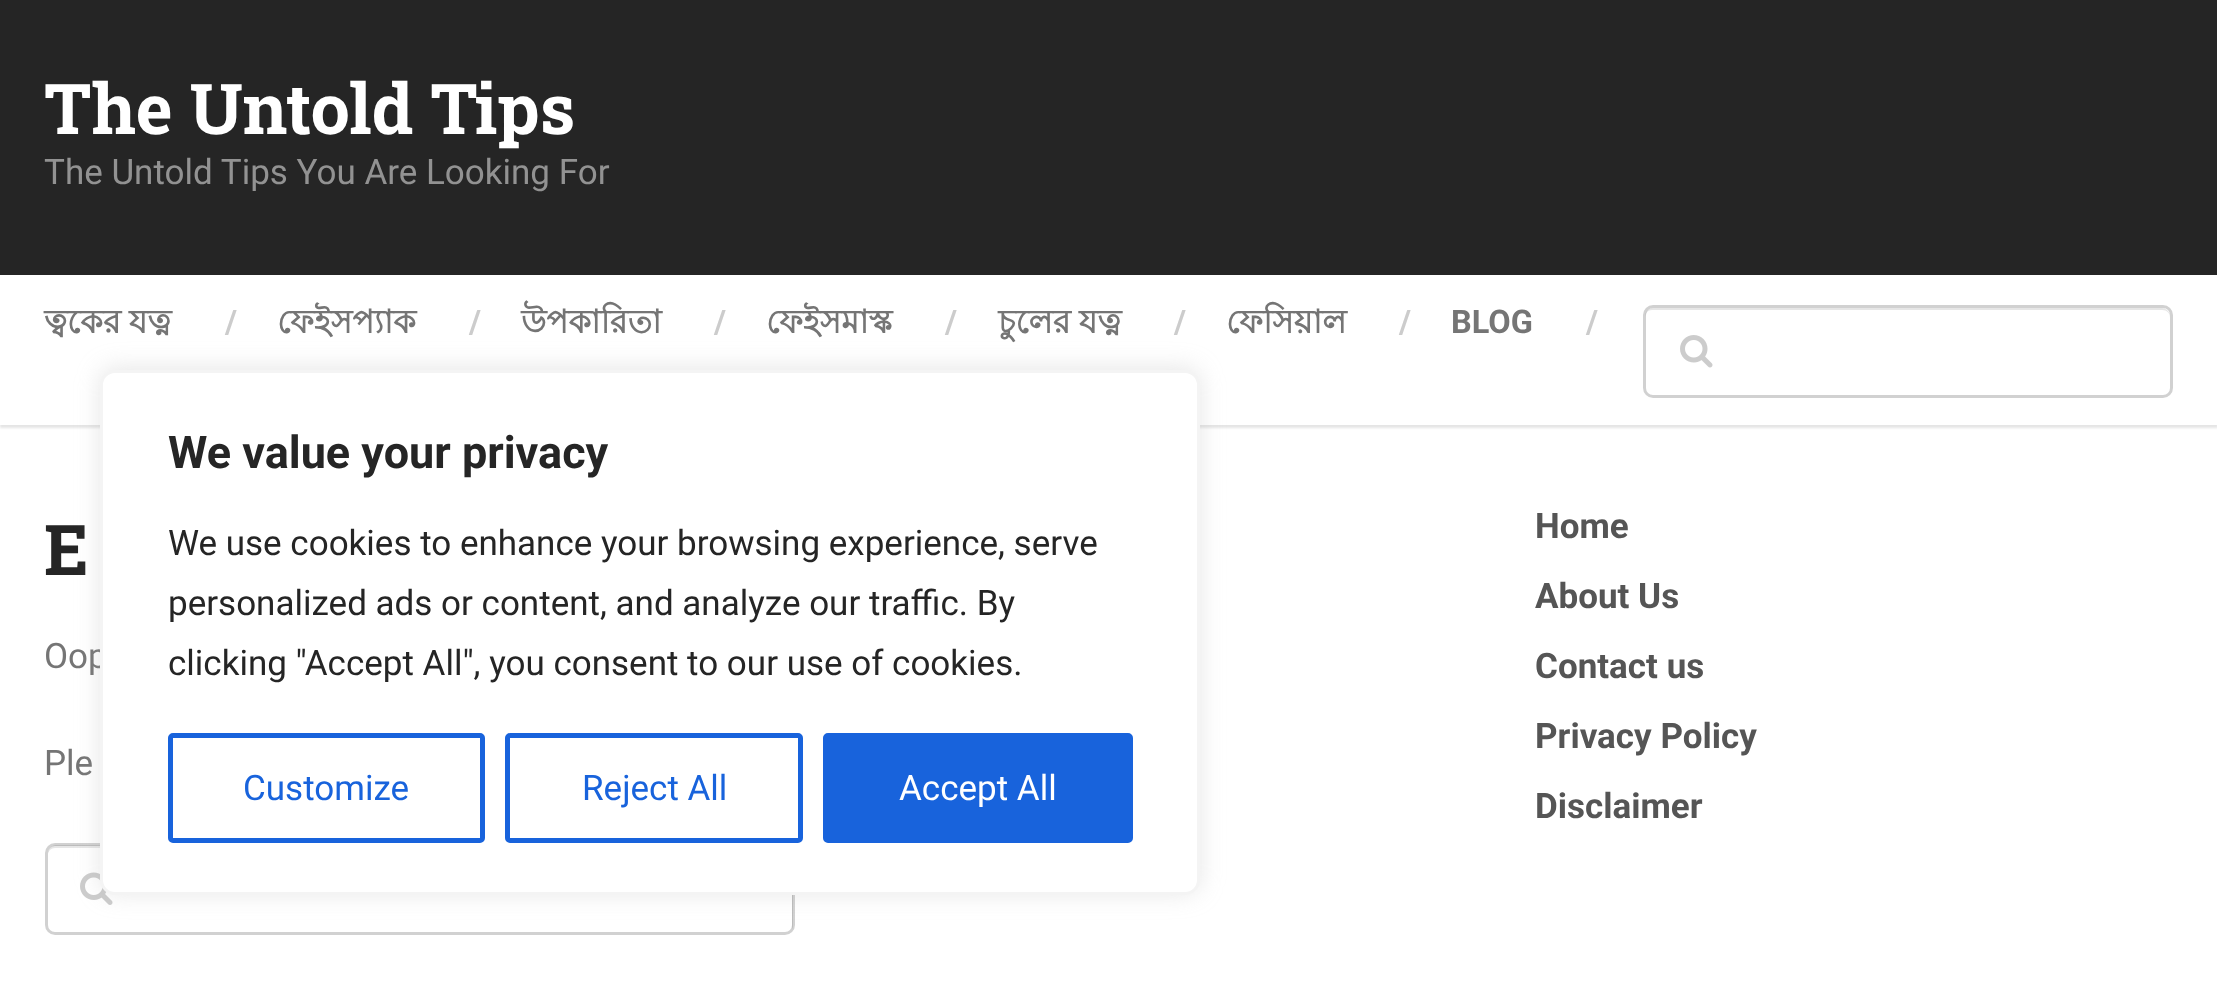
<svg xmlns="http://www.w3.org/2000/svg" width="2217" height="993">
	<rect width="100%" height="100%" fill="#252525" />
	<text x="44" y="134" font-family="Roboto Slab" font-size="70" font-weight="700" fill="#FFFFFF">The Untold Tips</text>
	<text x="44" y="184" font-family="Roboto" font-size="35" fill="#929292">The Untold Tips You Are Looking For</text>
	<rect x="0" y="425" width="2217" height="568" fill="#FFFFFF" />
	<rect x="0" y="278" width="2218" height="150" fill="#000000" fill-opacity="0.1" filter="blur(1px)" />
	<rect x="0" y="275" width="2217" height="150" fill="#FFFFFF" />
	<text x="44" y="333" word-spacing="-1" font-family="Lohit Bengali" font-size="32.5" font-weight="700" fill="#757575">ত্বকের যত্ন</text>
	<text x="225" y="333" font-family="Roboto" font-size="32.5" font-weight="700" fill="#CCCCCC">/</text>
	<text x="277" y="333" font-family="Lohit Bengali" font-size="32.5" font-weight="700" fill="#757575">ফেইসপ্যাক</text>
	<text x="469" y="333" font-family="Roboto" font-size="32.5" font-weight="700" fill="#CCCCCC">/</text>
	<text x="521" y="333" font-family="Lohit Bengali" font-size="32.5" font-weight="700" fill="#757575">উপকারিতা</text>
	<text x="714" y="333" font-family="Roboto" font-size="32.5" font-weight="700" fill="#CCCCCC">/</text>
	<text x="766" y="333" font-family="Lohit Bengali" font-size="32.5" font-weight="700" fill="#757575">ফেইসমাস্ক</text>
	<text x="945" y="333" font-family="Roboto" font-size="32.5" font-weight="700" fill="#CCCCCC">/</text>
	<text x="998" y="333" word-spacing="-1" font-family="Lohit Bengali" font-size="32.5" font-weight="700" fill="#757575">চুলের যত্ন</text>
	<text x="1174" y="333" font-family="Roboto" font-size="32.5" font-weight="700" fill="#CCCCCC">/</text>
	<text x="1226" y="333" font-family="Lohit Bengali" font-size="32.5" font-weight="700" fill="#757575">ফেসিয়াল</text>
	<text x="1399" y="333" font-family="Roboto" font-size="32.5" font-weight="700" fill="#CCCCCC">/</text>
	<text x="1451" y="333" font-family="Roboto" font-size="32.5" font-weight="700" fill="#757575">BLOG</text>
	<text x="1586" y="333" font-family="Roboto" font-size="32.5" font-weight="700" fill="#CCCCCC">/</text>
	<path d="M1652 310H2162C2167 310 2170 313 2170 318V316C2170 312 2166 308 2162 308H1653C1649 308 1645 312 1645 316V318C1645 313 1648 310 1652 310Z" fill="#E6E6E6" />
	<rect x="1644.5" y="306.5" width="527" height="90" rx="8.5" fill="none" stroke="#000000" stroke-opacity="0.18" stroke-width="3" />
	<image x="1680" y="335" width="33" height="33" href="assets/img1.png" />
	<text x="44" y="575" font-family="Roboto Slab" font-size="70" font-weight="700" fill="#252525">E</text>
	<g font-family="Roboto" font-size="35" fill="#757575">
		<text x="44" y="668">Oop</text>
		<text x="44" y="775">Ple</text>
	</g>
	<path d="M55 848H785C789 848 792 851 792 855V929C793 928 793 926 793 925V853C793 849 789 845 785 845H56C52 845 48 849 48 853V855C48 851 51 848 55 848Z" fill="#E6E6E6" />
	<rect x="46.5" y="844.5" width="747" height="89" rx="8.5" fill="none" stroke="#000000" stroke-opacity="0.18" stroke-width="3" />
	<image x="80" y="872" width="33" height="33" href="assets/img2.png" />
	<g font-family="Roboto" font-size="35" font-weight="700" fill="#555555">
		<text x="1535" y="538">Home</text>
		<text x="1535" y="608">About Us</text>
		<text x="1535" y="678">Contact us</text>
		<text x="1535" y="748">Privacy Policy</text>
		<text x="1535" y="818">Disclaimer</text>
	</g>
	<rect x="100" y="368" width="1100" height="525" rx="15" fill="#ACABAB" fill-opacity="0.3" filter="blur(12.5px)" />
	<rect x="101.5" y="371.5" width="1097" height="522" rx="13.5" fill="#FFFFFF" stroke="#F4F4F4" stroke-width="3" />
	<text x="168" y="468" font-family="Roboto" font-size="45" font-weight="700" fill="#252525">We value your privacy</text>
	<g font-family="Roboto" font-size="35" fill="#252525">
		<text x="168" y="555">We use cookies to enhance your browsing experience, serve</text>
		<text x="168" y="615">personalized ads or content, and analyze our traffic. By</text>
		<text x="168" y="675">clicking "Accept All", you consent to our use of cookies.</text>
	</g>
	<rect x="170.5" y="735.5" width="312" height="105" rx="2.5" fill="none" stroke="#1863DC" stroke-width="5" />
	<text x="243" y="800" font-family="Roboto" font-size="35" fill="#1863DC">Customize</text>
	<rect x="507.5" y="735.5" width="293" height="105" rx="2.5" fill="none" stroke="#1863DC" stroke-width="5" />
	<text x="582" y="800" font-family="Roboto" font-size="35" fill="#1863DC">Reject All</text>
	<rect x="825.5" y="735.5" width="305" height="105" rx="2.5" fill="#1863DC" stroke="#1863DC" stroke-width="5" />
	<text x="899" y="800" font-family="Roboto" font-size="35" fill="#FFFFFF">Accept All</text>
</svg>
